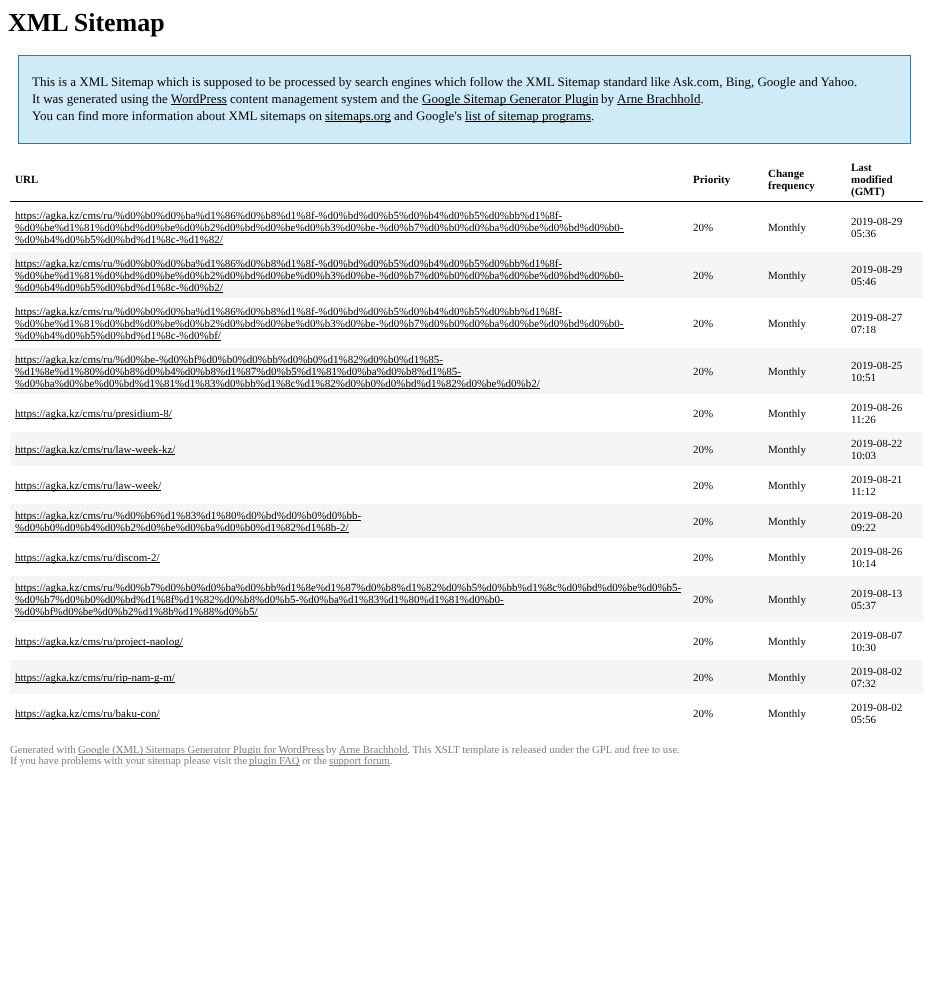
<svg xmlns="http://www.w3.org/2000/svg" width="929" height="992">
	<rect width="100%" height="100%" fill="#FFFFFF" />
	<text x="8" y="31" font-family="Liberation Serif" font-size="26" font-weight="700" fill="#000000">XML Sitemap</text>
	<rect x="18.5" y="55.5" width="892" height="88" fill="#CFEBF7" stroke="#2580B2" />
	<g font-family="Liberation Serif" font-size="13" fill="#000000">
		<text x="32" y="86">This is a XML Sitemap which is supposed to be processed by search engines which follow the XML Sitemap standard like Ask.com, Bing, Google and Yahoo.</text>
		<text x="32" y="103">It was generated using the WordPress content management system and the</text>
	</g>
	<rect x="422" y="104" width="176" height="1" fill="#000000" />
	<g font-family="Liberation Serif" font-size="13" fill="#000000">
		<text x="422" y="103">Google Sitemap Generator Plugin</text>
		<text x="601" y="103">by</text>
		<text x="617" y="103">Arne Brachhold.</text>
	</g>
	<rect x="617" y="104" width="83" height="1" fill="#000000" />
	<rect x="171" y="104" width="56" height="1" fill="#000000" />
	<text x="32" y="120" font-family="Liberation Serif" font-size="13" fill="#000000">You can find more information about XML sitemaps on</text>
	<rect x="325" y="121" width="66" height="1" fill="#000000" />
	<text x="325" y="120" font-family="Liberation Serif" font-size="13" fill="#000000">sitemaps.org and Google's</text>
	<rect x="465" y="121" width="126" height="1" fill="#000000" />
	<text x="465" y="120" font-family="Liberation Serif" font-size="13" fill="#000000">list of sitemap programs.</text>
	<rect x="10" y="201" width="913" height="1" fill="#000000" />
	<g font-family="Liberation Serif" font-size="11" font-weight="700" fill="#000000">
		<text x="15" y="183">URL</text>
		<text x="693" y="183">Priority</text>
		<text x="768" y="177">Change</text>
		<text x="768" y="189">frequency</text>
		<text x="851" y="171">Last</text>
		<text x="851" y="183">modified</text>
		<text x="851" y="195">(GMT)</text>
	</g>
	<rect x="15" y="220" width="547" height="1" fill="#000000" />
	<g font-family="Liberation Serif" font-size="11" fill="#000000">
		<text x="15" y="219">https://agka.kz/cms/ru/%d0%b0%d0%ba%d1%86%d0%b8%d1%8f-%d0%bd%d0%b5%d0%b4%d0%b5%d0%bb%d1%8f-</text>
		<text x="15" y="231">%d0%be%d1%81%d0%bd%d0%be%d0%b2%d0%bd%d0%be%d0%b3%d0%be-%d0%b7%d0%b0%d0%ba%d0%be%d0%bd%d0%b0-</text>
	</g>
	<rect x="15" y="232" width="609" height="1" fill="#000000" />
	<text x="15" y="243" font-family="Liberation Serif" font-size="11" fill="#000000">%d0%b4%d0%b5%d0%bd%d1%8c-%d1%82/</text>
	<rect x="15" y="244" width="208" height="1" fill="#000000" />
	<g font-family="Liberation Serif" font-size="11" fill="#000000">
		<text x="693" y="231">20%</text>
		<text x="768" y="231">Monthly</text>
		<text x="851" y="225">2019-08-29</text>
		<text x="851" y="237">05:36</text>
	</g>
	<rect x="10" y="252" width="913" height="46" fill="#F5F5F5" />
	<rect x="15" y="268" width="547" height="1" fill="#000000" />
	<g font-family="Liberation Serif" font-size="11" fill="#000000">
		<text x="15" y="267">https://agka.kz/cms/ru/%d0%b0%d0%ba%d1%86%d0%b8%d1%8f-%d0%bd%d0%b5%d0%b4%d0%b5%d0%bb%d1%8f-</text>
		<text x="15" y="279">%d0%be%d1%81%d0%bd%d0%be%d0%b2%d0%bd%d0%be%d0%b3%d0%be-%d0%b7%d0%b0%d0%ba%d0%be%d0%bd%d0%b0-</text>
	</g>
	<rect x="15" y="280" width="609" height="1" fill="#000000" />
	<text x="15" y="291" font-family="Liberation Serif" font-size="11" fill="#000000">%d0%b4%d0%b5%d0%bd%d1%8c-%d0%b2/</text>
	<rect x="15" y="292" width="208" height="1" fill="#000000" />
	<g font-family="Liberation Serif" font-size="11" fill="#000000">
		<text x="693" y="279">20%</text>
		<text x="768" y="279">Monthly</text>
		<text x="851" y="273">2019-08-29</text>
		<text x="851" y="285">05:46</text>
	</g>
	<rect x="15" y="316" width="547" height="1" fill="#000000" />
	<g font-family="Liberation Serif" font-size="11" fill="#000000">
		<text x="15" y="315">https://agka.kz/cms/ru/%d0%b0%d0%ba%d1%86%d0%b8%d1%8f-%d0%bd%d0%b5%d0%b4%d0%b5%d0%bb%d1%8f-</text>
		<text x="15" y="327">%d0%be%d1%81%d0%bd%d0%be%d0%b2%d0%bd%d0%be%d0%b3%d0%be-%d0%b7%d0%b0%d0%ba%d0%be%d0%bd%d0%b0-</text>
	</g>
	<rect x="15" y="328" width="609" height="1" fill="#000000" />
	<text x="15" y="339" font-family="Liberation Serif" font-size="11" fill="#000000">%d0%b4%d0%b5%d0%bd%d1%8c-%d0%bf/</text>
	<rect x="15" y="340" width="206" height="1" fill="#000000" />
	<g font-family="Liberation Serif" font-size="11" fill="#000000">
		<text x="693" y="327">20%</text>
		<text x="768" y="327">Monthly</text>
		<text x="851" y="321">2019-08-27</text>
		<text x="851" y="333">07:18</text>
	</g>
	<rect x="10" y="348" width="913" height="46" fill="#F5F5F5" />
	<rect x="15" y="364" width="428" height="1" fill="#000000" />
	<g font-family="Liberation Serif" font-size="11" fill="#000000">
		<text x="15" y="363">https://agka.kz/cms/ru/%d0%be-%d0%bf%d0%b0%d0%bb%d0%b0%d1%82%d0%b0%d1%85-</text>
		<text x="15" y="375">%d1%8e%d1%80%d0%b8%d0%b4%d0%b8%d1%87%d0%b5%d1%81%d0%ba%d0%b8%d1%85-</text>
	</g>
	<rect x="15" y="376" width="446" height="1" fill="#000000" />
	<text x="15" y="387" font-family="Liberation Serif" font-size="11" fill="#000000">%d0%ba%d0%be%d0%bd%d1%81%d1%83%d0%bb%d1%8c%d1%82%d0%b0%d0%bd%d1%82%d0%be%d0%b2/</text>
	<rect x="15" y="388" width="525" height="1" fill="#000000" />
	<g font-family="Liberation Serif" font-size="11" fill="#000000">
		<text x="693" y="375">20%</text>
		<text x="768" y="375">Monthly</text>
		<text x="851" y="369">2019-08-25</text>
		<text x="851" y="381">10:51</text>
	</g>
	<rect x="15" y="418" width="157" height="1" fill="#000000" />
	<g font-family="Liberation Serif" font-size="11" fill="#000000">
		<text x="15" y="417">https://agka.kz/cms/ru/presidium-8/</text>
		<text x="693" y="417">20%</text>
		<text x="768" y="417">Monthly</text>
		<text x="851" y="411">2019-08-26</text>
		<text x="851" y="423">11:26</text>
	</g>
	<rect x="10" y="432" width="913" height="34" fill="#F5F5F5" />
	<rect x="15" y="454" width="160" height="1" fill="#000000" />
	<g font-family="Liberation Serif" font-size="11" fill="#000000">
		<text x="15" y="453">https://agka.kz/cms/ru/law-week-kz/</text>
		<text x="693" y="453">20%</text>
		<text x="768" y="453">Monthly</text>
		<text x="851" y="447">2019-08-22</text>
		<text x="851" y="459">10:03</text>
	</g>
	<rect x="15" y="490" width="146" height="1" fill="#000000" />
	<g font-family="Liberation Serif" font-size="11" fill="#000000">
		<text x="15" y="489">https://agka.kz/cms/ru/law-week/</text>
		<text x="693" y="489">20%</text>
		<text x="768" y="489">Monthly</text>
		<text x="851" y="483">2019-08-21</text>
		<text x="851" y="495">11:12</text>
	</g>
	<rect x="10" y="504" width="913" height="34" fill="#F5F5F5" />
	<rect x="15" y="520" width="346" height="1" fill="#000000" />
	<g font-family="Liberation Serif" font-size="11" fill="#000000">
		<text x="15" y="519">https://agka.kz/cms/ru/%d0%b6%d1%83%d1%80%d0%bd%d0%b0%d0%bb-</text>
		<text x="15" y="531">%d0%b0%d0%b4%d0%b2%d0%be%d0%ba%d0%b0%d1%82%d1%8b-2/</text>
	</g>
	<rect x="15" y="532" width="334" height="1" fill="#000000" />
	<g font-family="Liberation Serif" font-size="11" fill="#000000">
		<text x="693" y="525">20%</text>
		<text x="768" y="525">Monthly</text>
		<text x="851" y="519">2019-08-20</text>
		<text x="851" y="531">09:22</text>
	</g>
	<rect x="15" y="562" width="145" height="1" fill="#000000" />
	<g font-family="Liberation Serif" font-size="11" fill="#000000">
		<text x="15" y="561">https://agka.kz/cms/ru/discom-2/</text>
		<text x="693" y="561">20%</text>
		<text x="768" y="561">Monthly</text>
		<text x="851" y="555">2019-08-26</text>
		<text x="851" y="567">10:14</text>
	</g>
	<rect x="10" y="576" width="913" height="46" fill="#F5F5F5" />
	<rect x="15" y="592" width="666" height="1" fill="#000000" />
	<g font-family="Liberation Serif" font-size="11" fill="#000000">
		<text x="15" y="591">https://agka.kz/cms/ru/%d0%b7%d0%b0%d0%ba%d0%bb%d1%8e%d1%87%d0%b8%d1%82%d0%b5%d0%bb%d1%8c%d0%bd%d0%be%d0%b5-</text>
		<text x="15" y="603">%d0%b7%d0%b0%d0%bd%d1%8f%d1%82%d0%b8%d0%b5-%d0%ba%d1%83%d1%80%d1%81%d0%b0-</text>
	</g>
	<rect x="15" y="604" width="489" height="1" fill="#000000" />
	<text x="15" y="615" font-family="Liberation Serif" font-size="11" fill="#000000">%d0%bf%d0%be%d0%b2%d1%8b%d1%88%d0%b5/</text>
	<rect x="15" y="616" width="243" height="1" fill="#000000" />
	<g font-family="Liberation Serif" font-size="11" fill="#000000">
		<text x="693" y="603">20%</text>
		<text x="768" y="603">Monthly</text>
		<text x="851" y="597">2019-08-13</text>
		<text x="851" y="609">05:37</text>
	</g>
	<rect x="15" y="646" width="168" height="1" fill="#000000" />
	<g font-family="Liberation Serif" font-size="11" fill="#000000">
		<text x="15" y="645">https://agka.kz/cms/ru/project-naolog/</text>
		<text x="693" y="645">20%</text>
		<text x="768" y="645">Monthly</text>
		<text x="851" y="639">2019-08-07</text>
		<text x="851" y="651">10:30</text>
	</g>
	<rect x="10" y="660" width="913" height="34" fill="#F5F5F5" />
	<rect x="15" y="682" width="160" height="1" fill="#000000" />
	<g font-family="Liberation Serif" font-size="11" fill="#000000">
		<text x="15" y="681">https://agka.kz/cms/ru/rip-nam-g-m/</text>
		<text x="693" y="681">20%</text>
		<text x="768" y="681">Monthly</text>
		<text x="851" y="675">2019-08-02</text>
		<text x="851" y="687">07:32</text>
	</g>
	<rect x="15" y="718" width="145" height="1" fill="#000000" />
	<g font-family="Liberation Serif" font-size="11" fill="#000000">
		<text x="15" y="717">https://agka.kz/cms/ru/baku-con/</text>
		<text x="693" y="717">20%</text>
		<text x="768" y="717">Monthly</text>
		<text x="851" y="711">2019-08-02</text>
		<text x="851" y="723">05:56</text>
	</g>
	<text x="10" y="753" font-family="Liberation Serif" font-size="10.7" fill="#808080">Generated with</text>
	<rect x="78" y="754" width="246" height="1" fill="#808080" />
	<g font-family="Liberation Serif" font-size="10.7" fill="#808080">
		<text x="78" y="753">Google (XML) Sitemaps Generator Plugin for WordPress</text>
		<text x="326" y="753">by Arne Brachhold. This XSLT template is released under the GPL and free to use.</text>
	</g>
	<rect x="339" y="754" width="69" height="1" fill="#808080" />
	<text x="10" y="764" font-family="Liberation Serif" font-size="10.7" fill="#808080">If you have problems with your sitemap please visit the</text>
	<rect x="249" y="765" width="51" height="1" fill="#808080" />
	<text x="249" y="764" font-family="Liberation Serif" font-size="10.7" fill="#808080">plugin FAQ or the</text>
	<rect x="329" y="765" width="61" height="1" fill="#808080" />
	<text x="329" y="764" font-family="Liberation Serif" font-size="10.7" fill="#808080">support forum.</text>
</svg>
